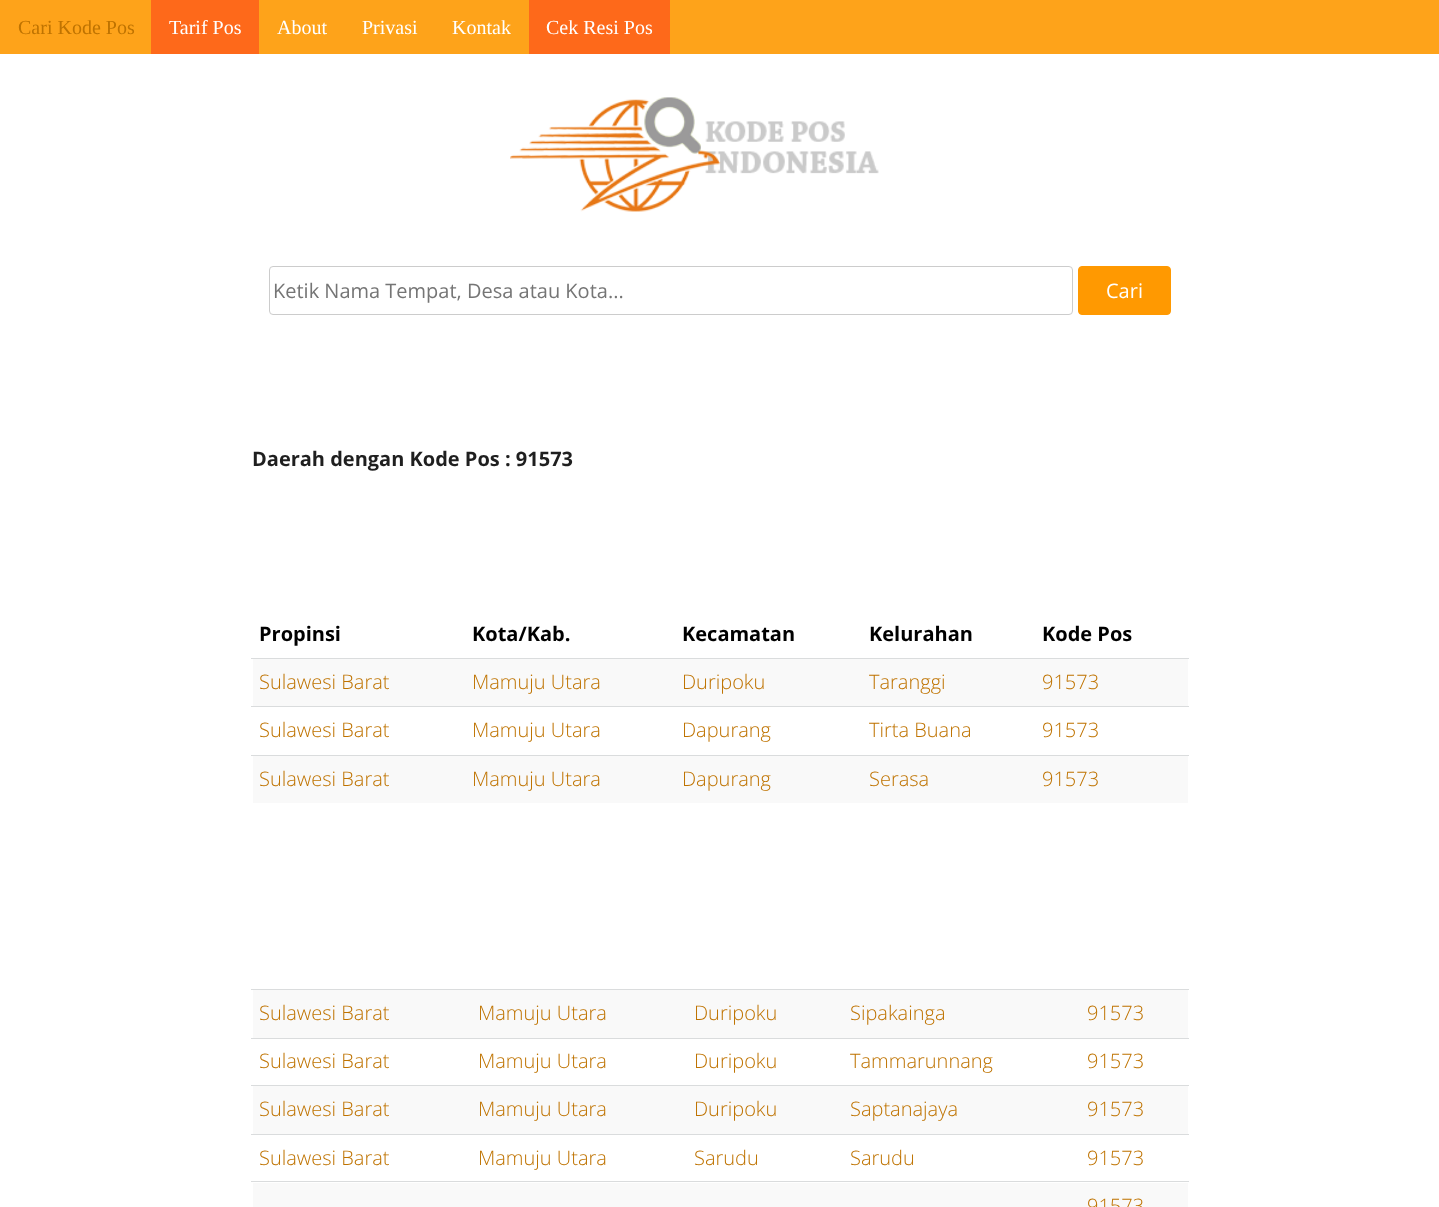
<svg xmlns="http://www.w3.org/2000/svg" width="1439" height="1207">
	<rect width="100%" height="100%" fill="#FFFFFF" />
	<rect x="0" y="0" width="1439" height="54" fill="#FEA31A" />
	<text x="18" y="34" font-family="Liberation Serif" font-size="20" fill="#BF7301">Cari Kode Pos</text>
	<rect x="151" y="0" width="108" height="54" fill="#FE691A" />
	<g font-family="Liberation Serif" font-size="20" fill="#FFFFFF">
		<text x="169" y="34">Tarif Pos</text>
		<text x="277" y="34">About</text>
		<text x="362" y="34">Privasi</text>
		<text x="452" y="34">Kontak</text>
	</g>
	<rect x="529" y="0" width="141" height="54" fill="#FE691A" />
	<text x="546" y="34" font-family="Liberation Serif" font-size="20" fill="#FFFFFF">Cek Resi Pos</text>
	<image x="510" y="97" width="369" height="115" href="assets/img1.png" />
	<rect x="269.5" y="266.5" width="803" height="48" rx="3.5" fill="none" stroke="#CCCCCC" />
	<text x="273" y="298" font-family="Open Sans" font-size="20" fill="#757575">Ketik Nama Tempat, Desa atau Kota...</text>
	<rect x="1078.5" y="266.5" width="92" height="48" rx="3.5" fill="#FF9901" stroke="#FF9901" />
	<text x="1106" y="298" font-family="Open Sans" font-size="20" fill="#FFFFFF">Cari</text>
	<text x="252" y="466" font-family="Open Sans" font-size="20" font-weight="700" fill="#1F1F1F">Daerah dengan Kode Pos : 91573</text>
	<g font-family="Open Sans" font-size="20" font-weight="700" fill="#000000">
		<text x="259" y="641">Propinsi</text>
		<text x="472" y="641">Kota/Kab.</text>
		<text x="682" y="641">Kecamatan</text>
		<text x="869" y="641">Kelurahan</text>
		<text x="1042" y="641">Kode Pos</text>
	</g>
	<rect x="253" y="659" width="935" height="47" fill="#F9F9F9" />
	<rect x="251" y="658" width="938" height="1" fill="#DADCDD" />
	<g font-family="Open Sans" font-size="20" font-weight="300" fill="#BF7301">
		<text x="259" y="689">Sulawesi Barat</text>
		<text x="472" y="689">Mamuju Utara</text>
		<text x="682" y="689">Duripoku</text>
		<text x="869" y="689">Taranggi</text>
		<text x="1042" y="689">91573</text>
	</g>
	<rect x="251" y="706" width="938" height="1" fill="#DADCDD" />
	<g font-family="Open Sans" font-size="20" font-weight="300" fill="#BF7301">
		<text x="259" y="737">Sulawesi Barat</text>
		<text x="472" y="737">Mamuju Utara</text>
		<text x="682" y="737">Dapurang</text>
		<text x="869" y="737">Tirta Buana</text>
		<text x="1042" y="737">91573</text>
	</g>
	<rect x="253" y="756" width="935" height="47" fill="#F9F9F9" />
	<rect x="251" y="755" width="938" height="1" fill="#DADCDD" />
	<g font-family="Open Sans" font-size="20" font-weight="300" fill="#BF7301">
		<text x="259" y="786">Sulawesi Barat</text>
		<text x="472" y="786">Mamuju Utara</text>
		<text x="682" y="786">Dapurang</text>
		<text x="869" y="786">Serasa</text>
		<text x="1042" y="786">91573</text>
	</g>
	<rect x="253" y="990" width="935" height="48" fill="#F9F9F9" />
	<rect x="251" y="989" width="938" height="1" fill="#DADCDD" />
	<g font-family="Open Sans" font-size="20" font-weight="300" fill="#BF7301">
		<text x="259" y="1020">Sulawesi Barat</text>
		<text x="478" y="1020">Mamuju Utara</text>
		<text x="694" y="1020">Duripoku</text>
		<text x="850" y="1020">Sipakainga</text>
		<text x="1087" y="1020">91573</text>
	</g>
	<rect x="251" y="1038" width="938" height="1" fill="#DADCDD" />
	<g font-family="Open Sans" font-size="20" font-weight="300" fill="#BF7301">
		<text x="259" y="1068">Sulawesi Barat</text>
		<text x="478" y="1068">Mamuju Utara</text>
		<text x="694" y="1068">Duripoku</text>
		<text x="850" y="1068">Tammarunnang</text>
		<text x="1087" y="1068">91573</text>
	</g>
	<rect x="253" y="1086" width="935" height="48" fill="#F9F9F9" />
	<rect x="251" y="1085" width="938" height="1" fill="#DADCDD" />
	<g font-family="Open Sans" font-size="20" font-weight="300" fill="#BF7301">
		<text x="259" y="1116">Sulawesi Barat</text>
		<text x="478" y="1116">Mamuju Utara</text>
		<text x="694" y="1116">Duripoku</text>
		<text x="850" y="1116">Saptanajaya</text>
		<text x="1087" y="1116">91573</text>
	</g>
	<rect x="251" y="1134" width="938" height="1" fill="#DADCDD" />
	<g font-family="Open Sans" font-size="20" font-weight="300" fill="#BF7301">
		<text x="259" y="1165">Sulawesi Barat</text>
		<text x="478" y="1165">Mamuju Utara</text>
		<text x="694" y="1165">Sarudu</text>
		<text x="850" y="1165">Sarudu</text>
		<text x="1087" y="1165">91573</text>
	</g>
	<rect x="253" y="1183" width="935" height="24" fill="#F9F9F9" />
	<rect x="251" y="1181" width="938" height="1" fill="#DADCDD" />
	<text x="1087" y="1213" font-family="Open Sans" font-size="20" font-weight="300" fill="#BF7301">91573</text>
</svg>
